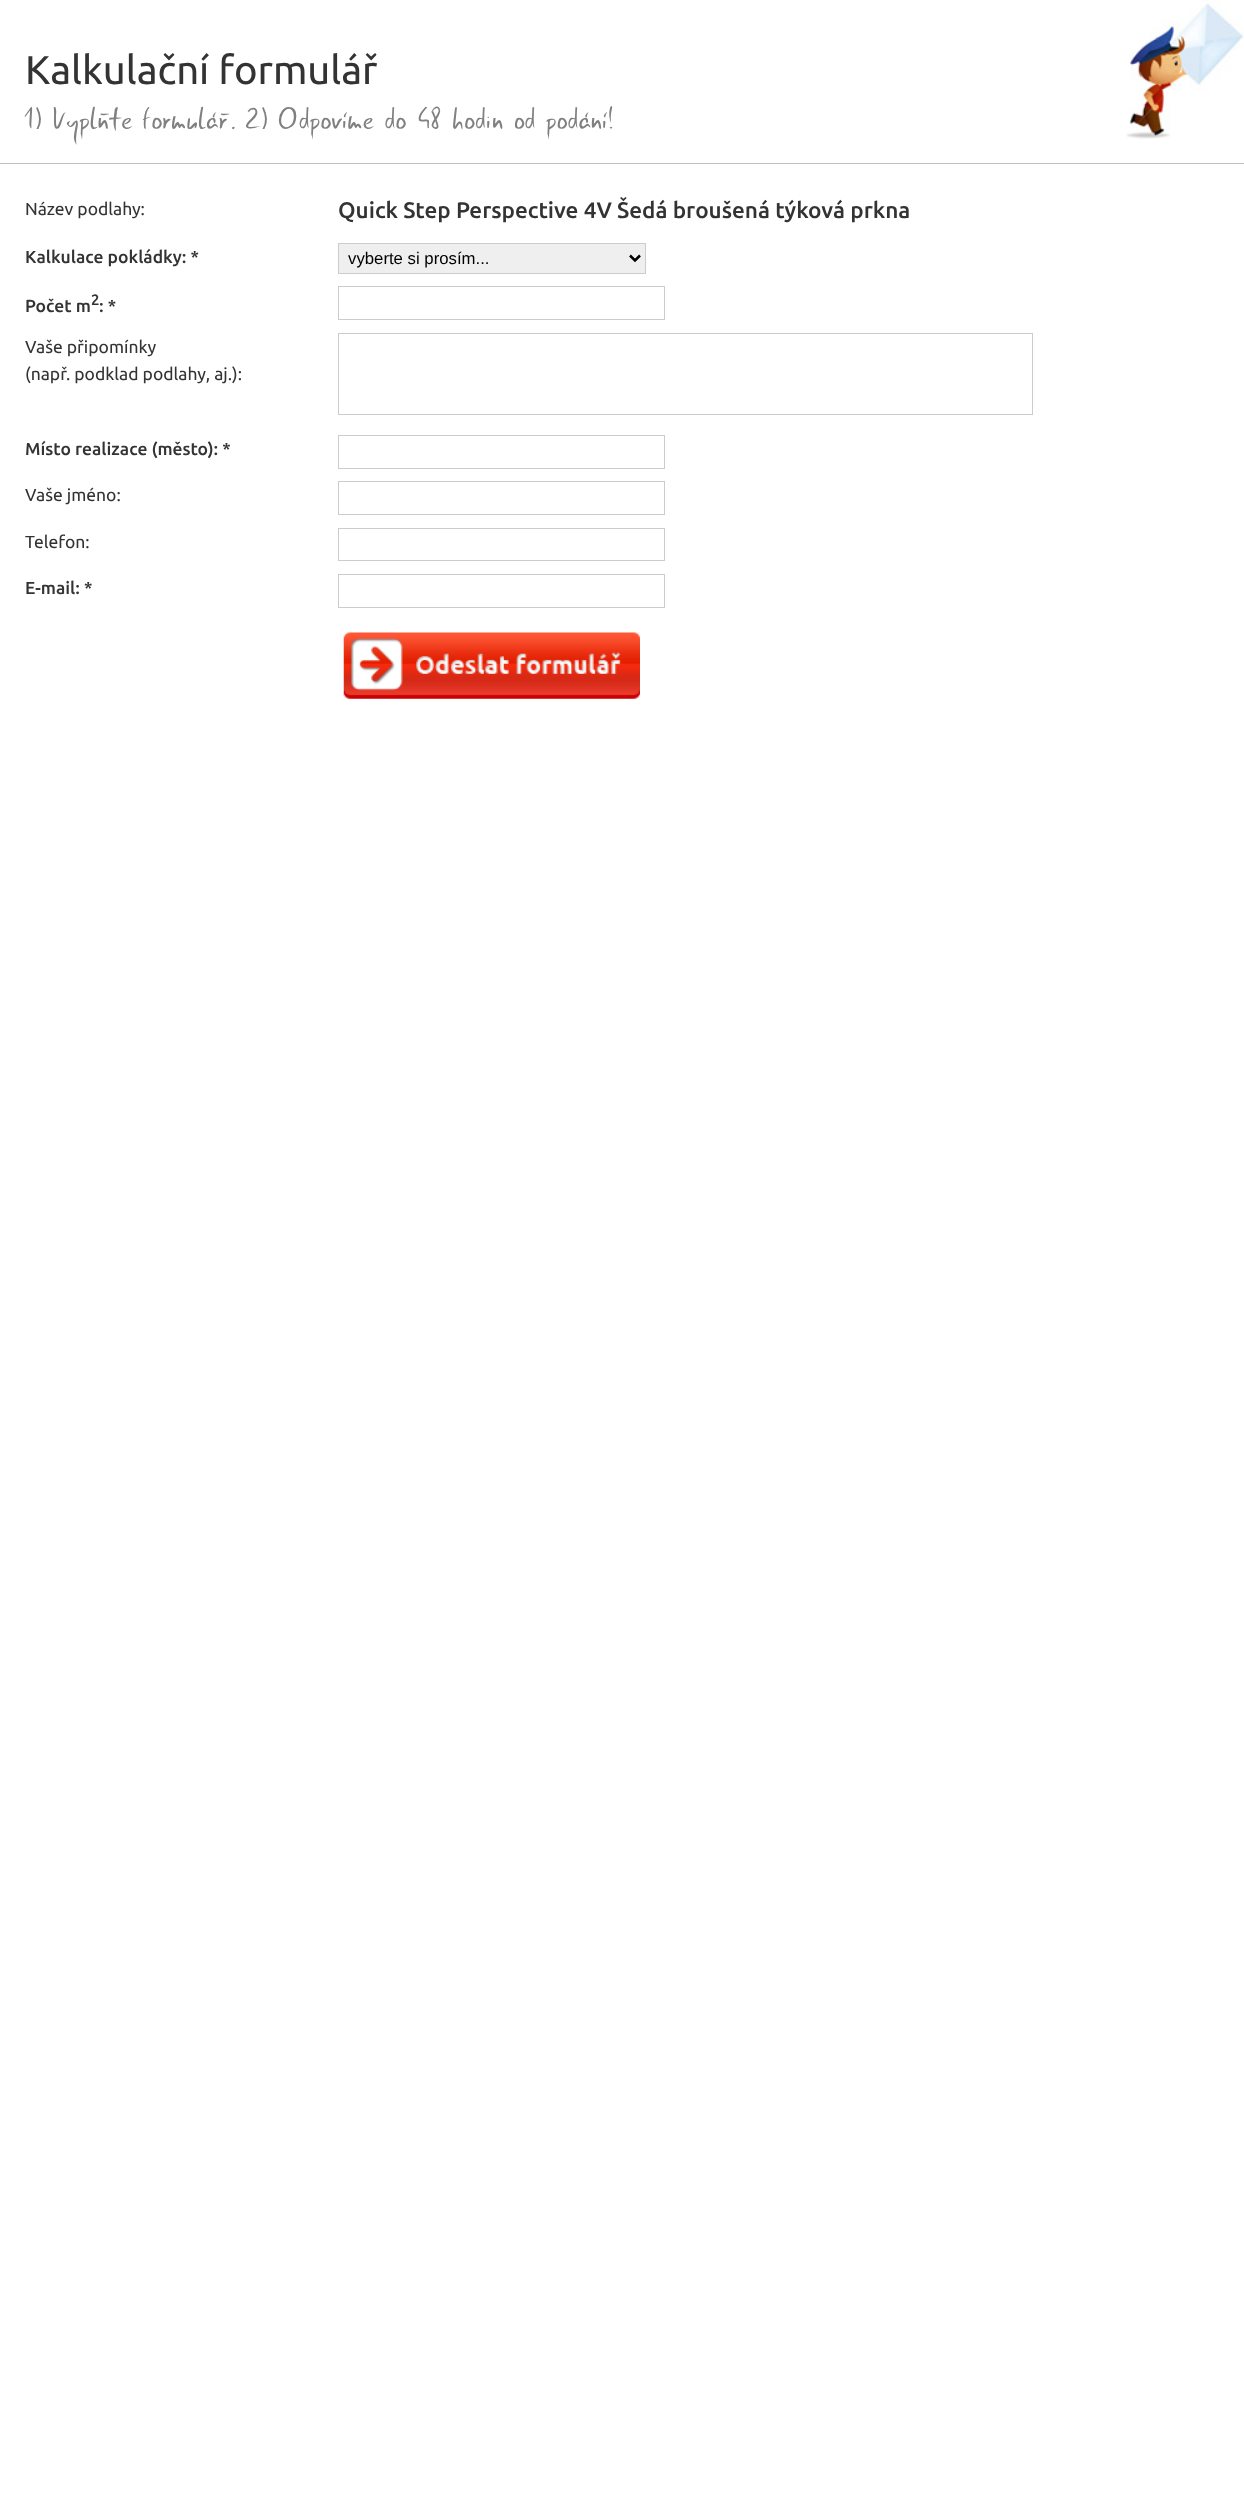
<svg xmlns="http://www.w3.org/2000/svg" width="1244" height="2498">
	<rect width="100%" height="100%" fill="#FFFFFF" />
	<text x="25" y="84" font-family="Ubuntu" font-size="40" fill="#333333">Kalkulační formulář</text>
	<text x="25" y="129" font-family="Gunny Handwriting" font-size="37.5" fill="#808080">1) Vyplňte formulář. 2) Odpovíme do 48 hodin od podání!</text>
	<image x="1126" y="0" width="118" height="139" href="assets/img1.png" />
	<rect x="0" y="163" width="1244" height="1" fill="#BFBFBF" />
	<text x="25" y="215" font-family="Ubuntu" font-size="17.5" fill="#333333">Název podlahy:</text>
	<text x="338" y="218" font-family="Ubuntu" font-size="22.5" font-weight="500" fill="#333333">Quick Step Perspective 4V Šedá broušená týková prkna</text>
	<text x="25" y="263" font-family="Ubuntu" font-size="17.5" font-weight="500" fill="#333333">Kalkulace pokládky: *</text>
	<rect x="338.5" y="243.5" width="307" height="30" fill="#EFEFEF" stroke="#CCCCCC" />
	<path d="M630 255.5L635 260.5L640 255.5" fill="none" stroke="#000000" stroke-width="2.5" />
	<text x="348" y="264" font-family="Liberation Sans" font-size="16.75" fill="#000000">vyberte si prosím...</text>
	<text x="25" y="312" font-family="Ubuntu" font-size="17.5" font-weight="500" fill="#333333">Počet m</text>
	<text x="91" y="305" font-family="Ubuntu" font-size="15" font-weight="500" fill="#333333">2</text>
	<text x="99" y="312" font-family="Ubuntu" font-size="17.5" font-weight="500" fill="#333333">: *</text>
	<rect x="338.5" y="286.5" width="326" height="33" fill="none" stroke="#CCCCCC" />
	<g font-family="Ubuntu" font-size="17.5" fill="#333333">
		<text x="25" y="353">Vaše připomínky</text>
		<text x="25" y="380">(např. podklad podlahy, aj.):</text>
	</g>
	<rect x="338.5" y="333.5" width="694" height="81" fill="none" stroke="#CCCCCC" />
	<text x="25" y="455" font-family="Ubuntu" font-size="17.5" font-weight="500" fill="#333333">Místo realizace (město): *</text>
	<rect x="338.5" y="435.5" width="326" height="33" fill="none" stroke="#CCCCCC" />
	<text x="25" y="501" font-family="Ubuntu" font-size="17.5" fill="#333333">Vaše jméno:</text>
	<rect x="338.5" y="481.5" width="326" height="33" fill="none" stroke="#CCCCCC" />
	<text x="25" y="548" font-family="Ubuntu" font-size="17.5" fill="#333333">Telefon:</text>
	<rect x="338.5" y="528.5" width="326" height="32" fill="none" stroke="#CCCCCC" />
	<text x="25" y="594" font-family="Ubuntu" font-size="17.5" font-weight="500" fill="#333333">E-mail: *</text>
	<rect x="338.5" y="574.5" width="326" height="33" fill="none" stroke="#CCCCCC" />
	<image x="343" y="632" width="297" height="67" href="assets/img2.png" />
</svg>
